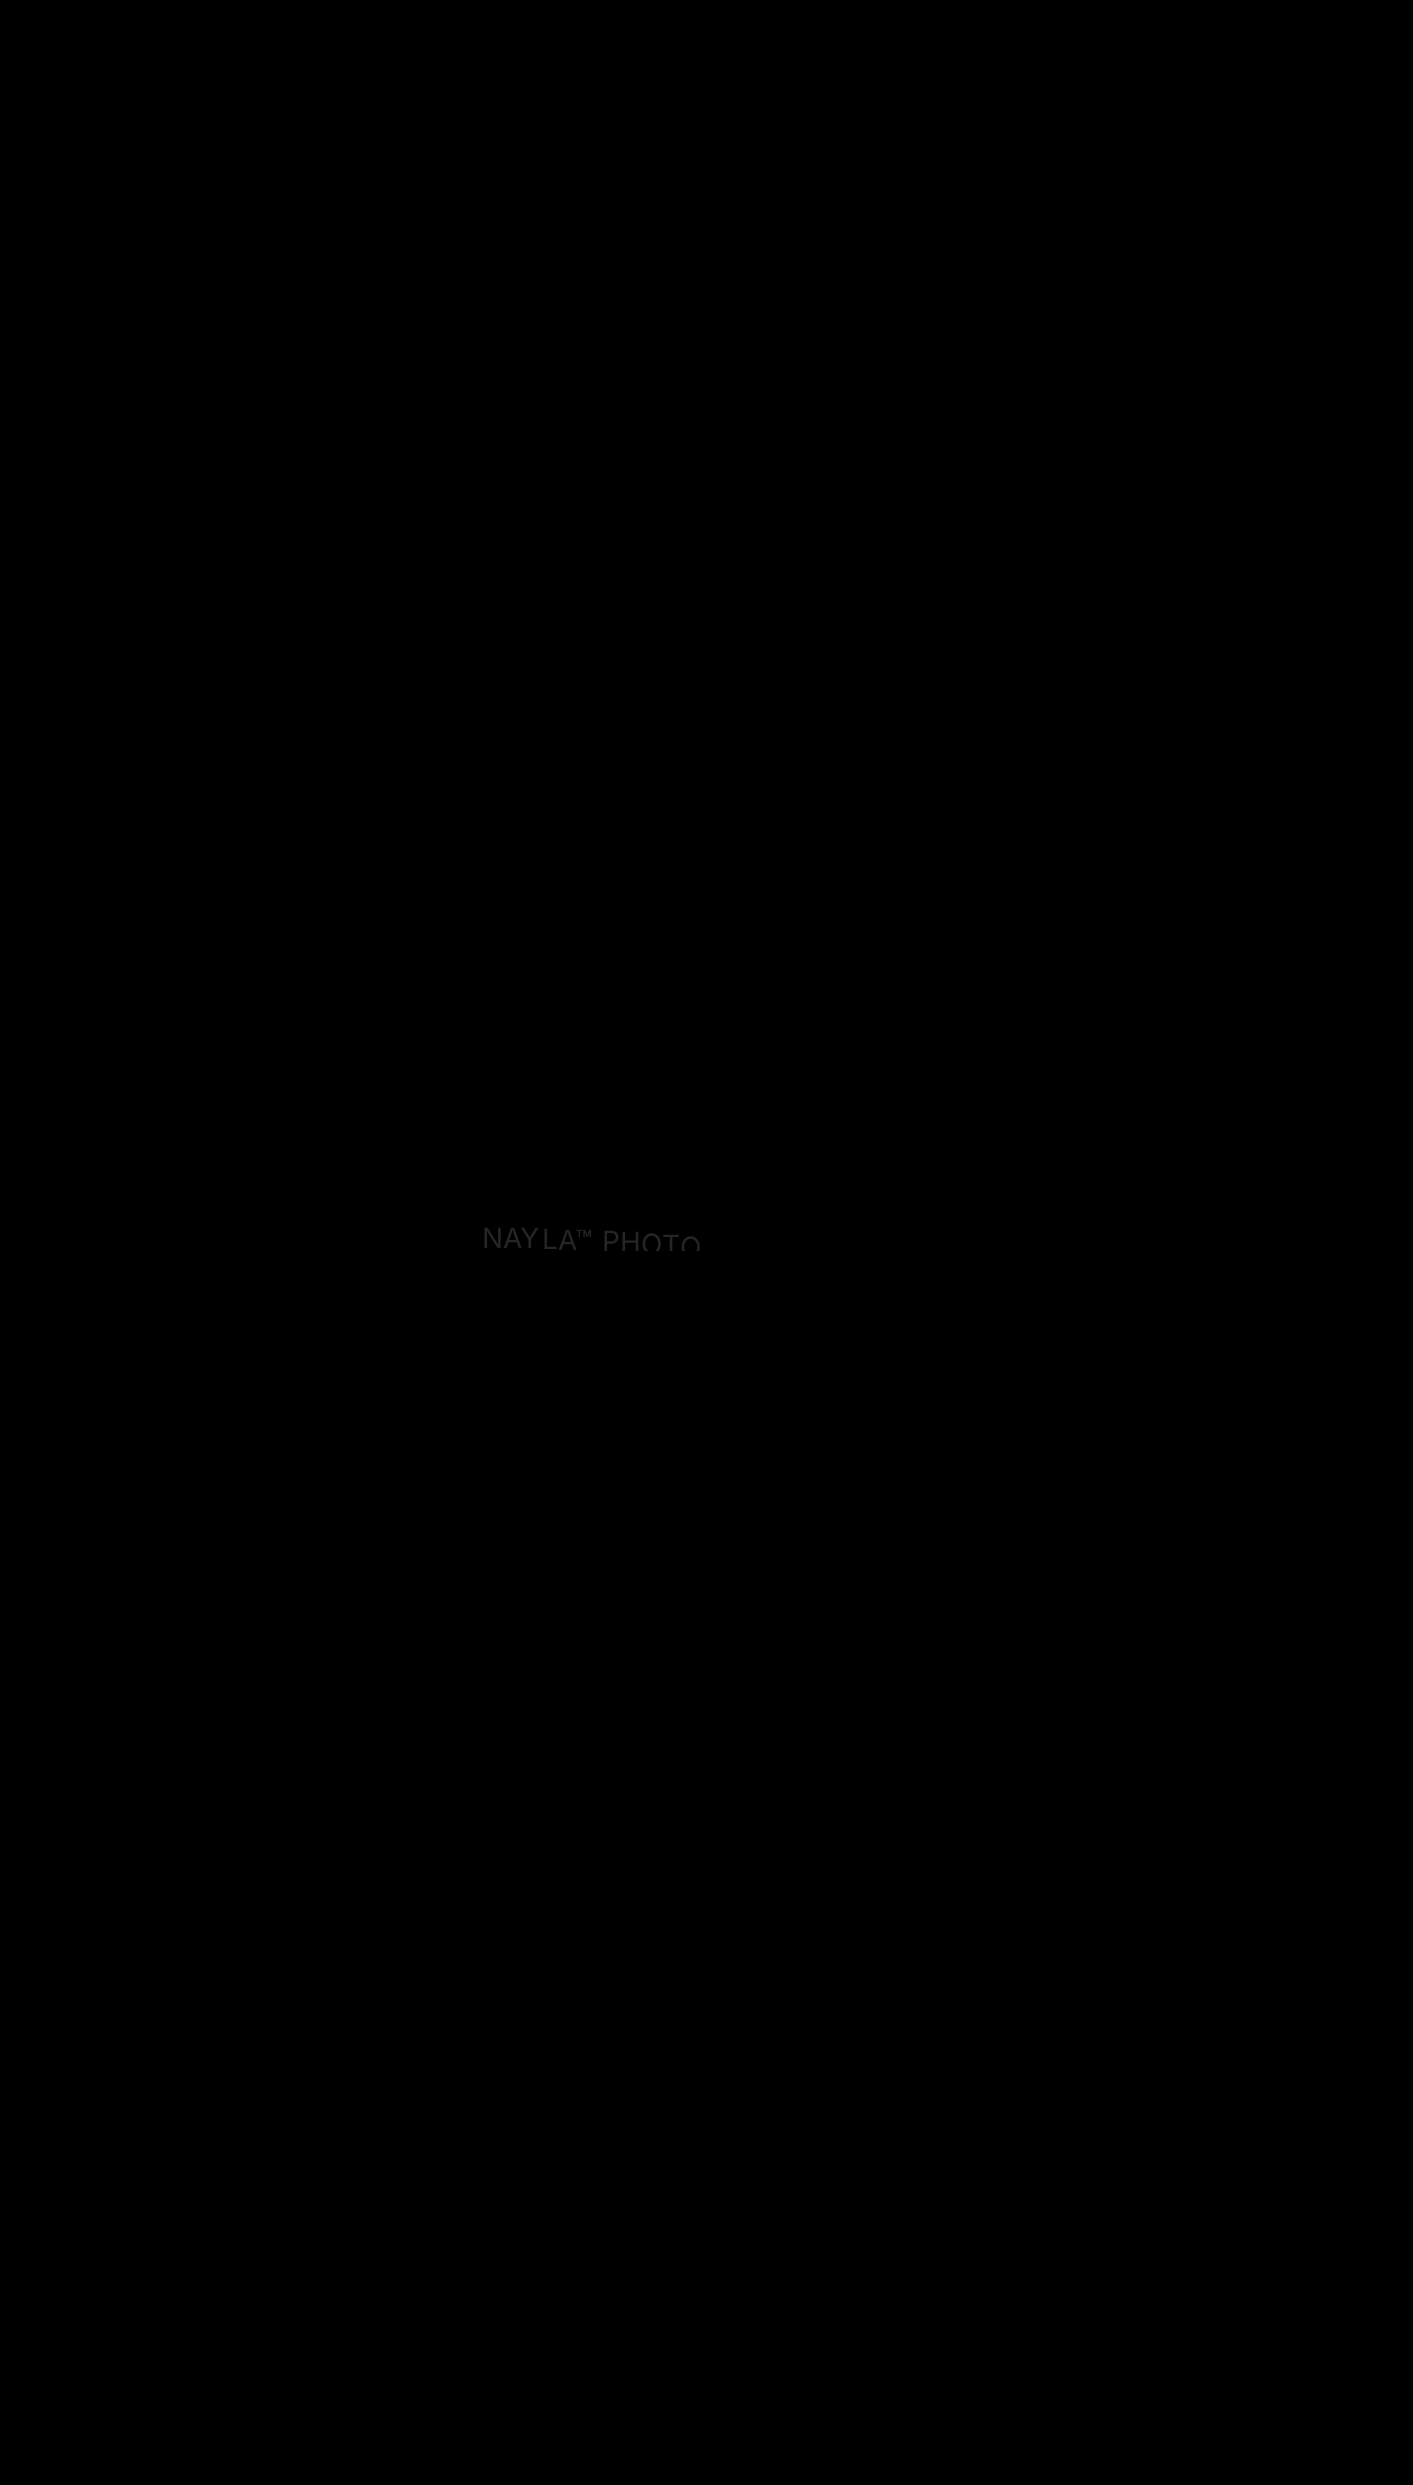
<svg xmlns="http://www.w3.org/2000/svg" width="1413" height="2485">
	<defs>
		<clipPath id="clip1"><rect x="483" y="1220" width="450" height="31" /></clipPath>
	</defs>
	<rect width="100%" height="100%" fill="#000000" />
	<g font-family="Inter" font-size="28" fill="#252525">
		<text x="482" y="1248">NAY</text>
		<text x="542" y="1249">L</text>
		<text x="558" y="1250">A™</text>
		<text x="602" y="1251">P</text>
	</g>
	<g clip-path="url(#clip1)">
		<g font-family="Inter" font-size="28" fill="#252525">
			<text x="620" y="1252">H</text>
			<text x="641" y="1254">O</text>
			<text x="662" y="1255">T</text>
			<text x="680" y="1257">O</text>
		</g>
	</g>
</svg>
